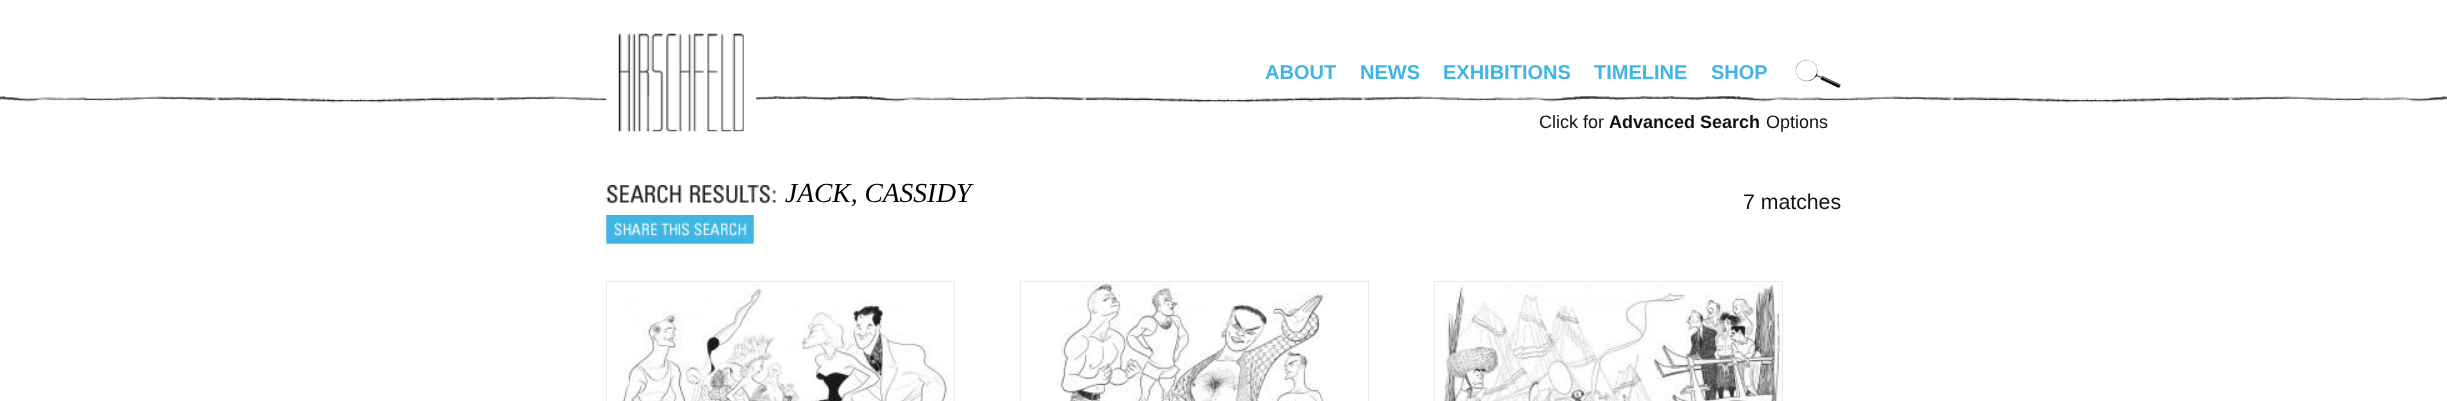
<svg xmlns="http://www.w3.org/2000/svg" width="2447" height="401">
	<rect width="100%" height="100%" fill="#FFFFFF" />
	<image x="0" y="96" width="2447" height="7" href="assets/img1.png" />
	<image x="606" y="33" width="151" height="99" href="assets/img2.png" />
	<g font-family="Liberation Sans" font-size="20" font-weight="700" fill="#41B6E4">
		<text x="1265" y="79">ABOUT</text>
		<text x="1360" y="79">NEWS</text>
		<text x="1443" y="79">EXHIBITIONS</text>
		<text x="1594" y="79">TIMELINE</text>
		<text x="1711" y="79">SHOP</text>
	</g>
	<image x="1795" y="59" width="46" height="29" href="assets/img3.png" />
	<text x="1539" y="128" font-family="Liberation Sans" font-size="18" fill="#111111">Click for</text>
	<text x="1609" y="128" font-family="Liberation Sans" font-size="18" font-weight="700" fill="#111111">Advanced Search</text>
	<text x="1766" y="128" font-family="Liberation Sans" font-size="18" fill="#111111">Options</text>
	<image x="606" y="185" width="171" height="19" href="assets/img4.png" />
	<text x="785" y="202" font-family="Liberation Serif" font-size="27.5" font-style="italic" fill="#000000">JACK, CASSIDY</text>
	<image x="606" y="215" width="148" height="29" href="assets/img5.png" />
	<text x="1743" y="209" font-family="Liberation Sans" font-size="21.25" fill="#111111">7 matches</text>
	<rect x="606.5" y="281.5" width="348" height="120" fill="none" stroke="#EAEAEA" />
	<image x="622" y="284" width="328" height="117" href="assets/img6.png" />
	<rect x="1020.5" y="281.5" width="348" height="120" fill="none" stroke="#EAEAEA" />
	<image x="1060" y="282" width="269" height="119" href="assets/img7.png" />
	<rect x="1434.5" y="281.5" width="348" height="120" fill="none" stroke="#EAEAEA" />
	<image x="1443" y="282" width="338" height="119" href="assets/img8.png" />
</svg>
